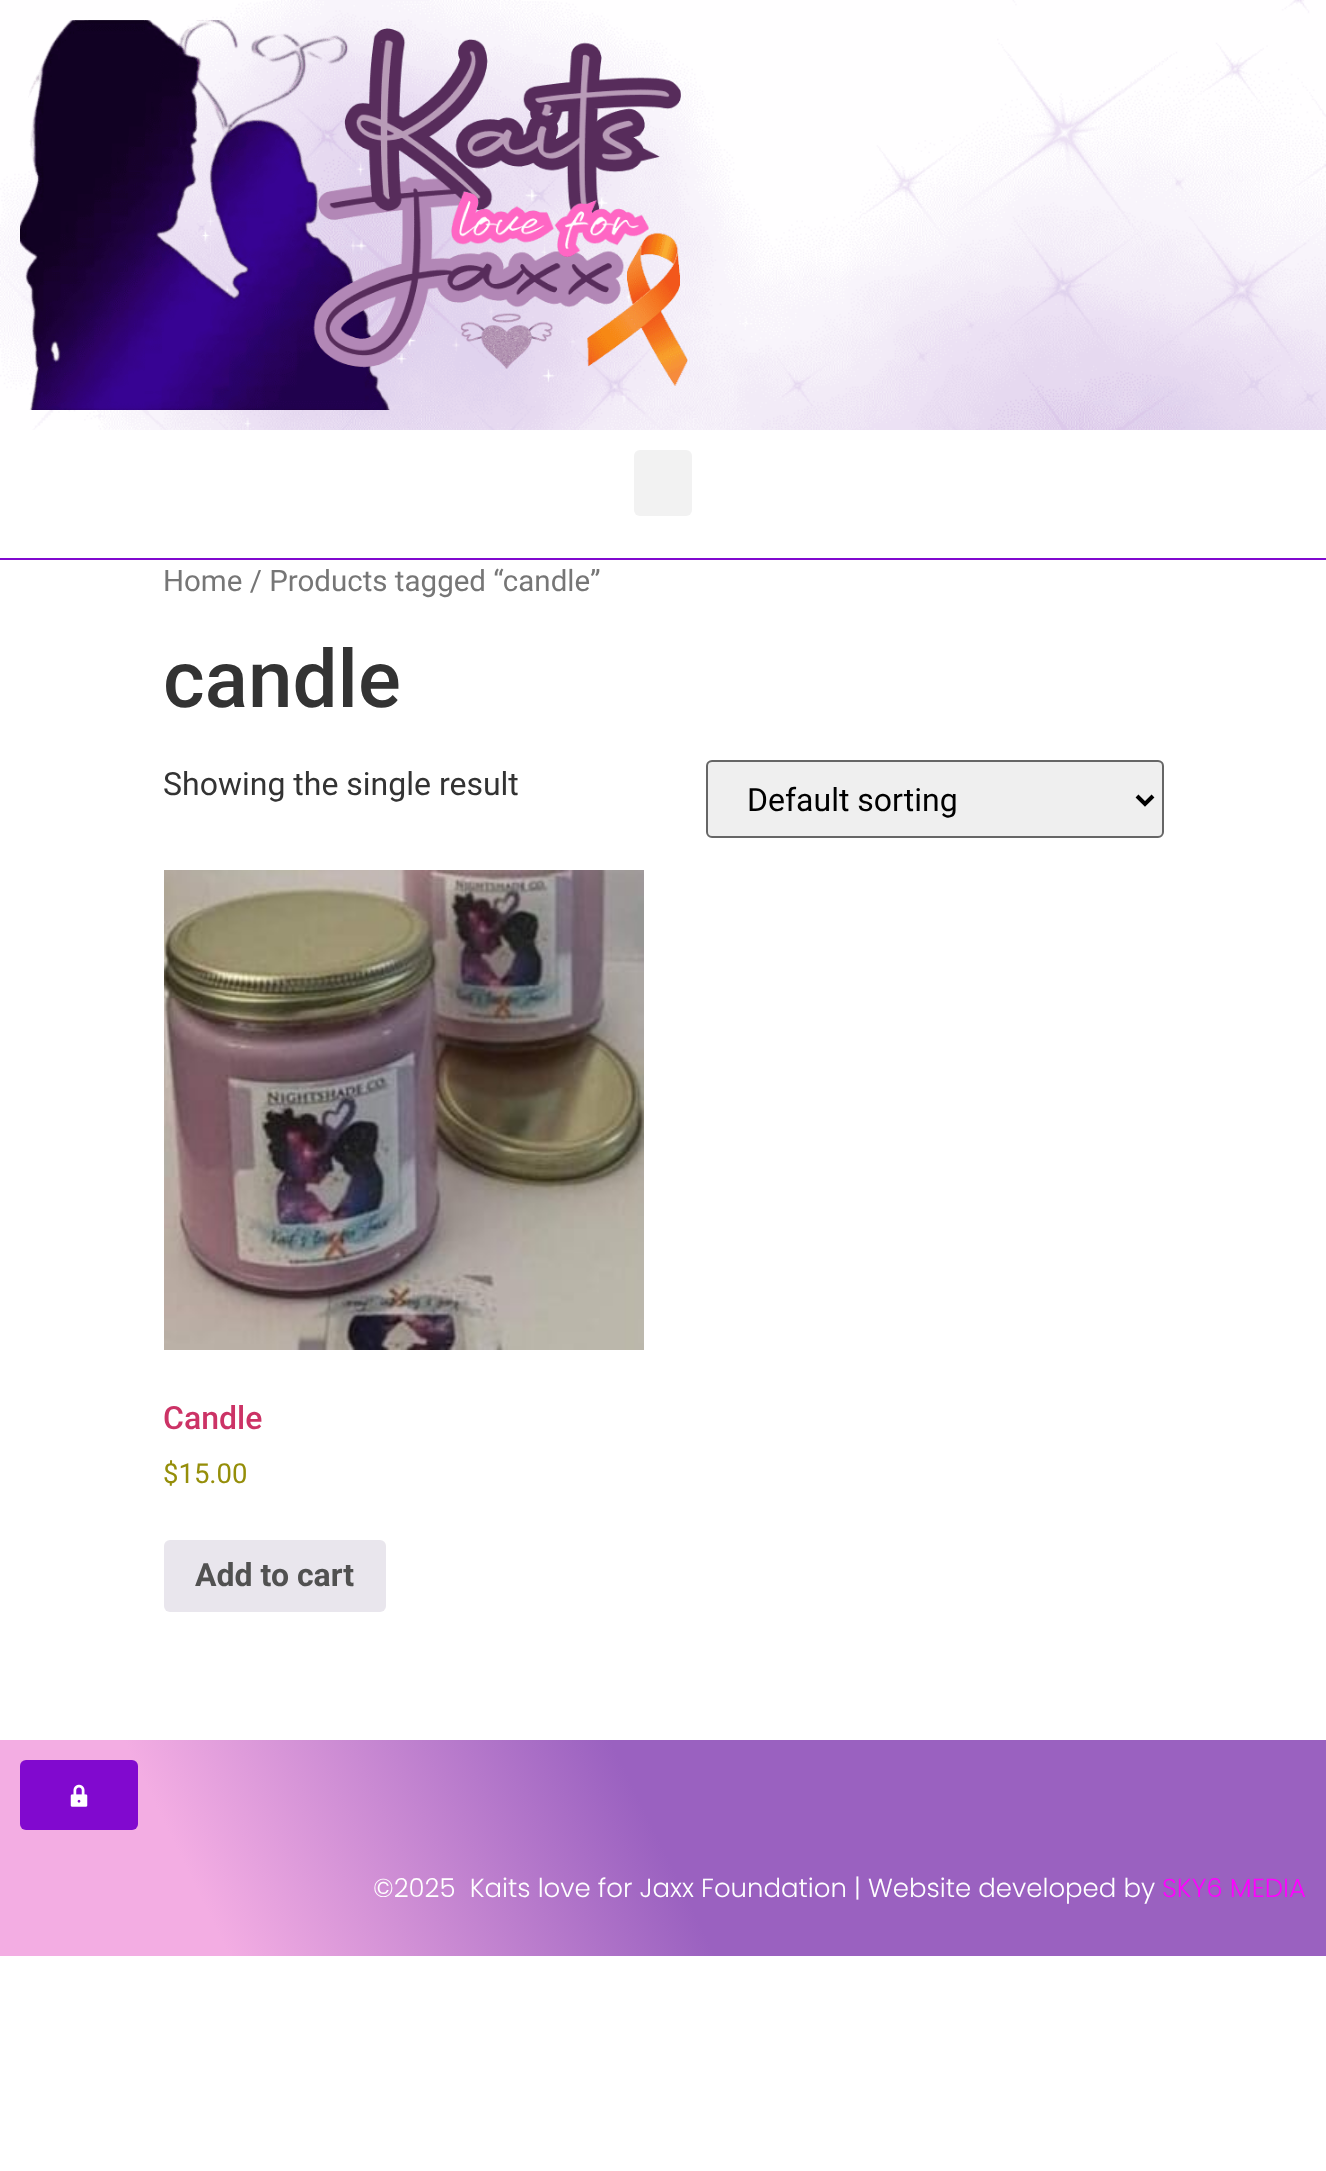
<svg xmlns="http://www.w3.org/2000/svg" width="1326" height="2171">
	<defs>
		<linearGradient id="g1" gradientUnits="userSpaceOnUse" x1="1241" y1="1566" x2="85" y2="2130"><stop offset="0.5" stop-color="#9A61C0" /><stop offset="0.84" stop-color="#F3ADE3" /></linearGradient>
	</defs>
	<rect width="100%" height="100%" fill="#FFFFFF" />
	<image x="0" y="0" width="1326" height="430" href="assets/img1.png" />
	<image x="20" y="20" width="668" height="390" href="assets/img2.png" />
	<rect x="0" y="558" width="1326" height="2" fill="#8109CF" />
	<rect x="634" y="450" width="58" height="66" rx="6" fill="#F2F2F2" />
	<text x="163" y="591" font-family="Roboto" font-size="29.5" fill="#767676">Home / Products tagged “candle”</text>
	<text x="163" y="707" font-family="Roboto" font-size="80" font-weight="500" fill="#333333">candle</text>
	<text x="163" y="795" font-family="Roboto" font-size="32" fill="#333333">Showing the single result</text>
	<rect x="707" y="761" width="456" height="76" rx="5" fill="#EFEFEF" stroke="#666666" stroke-width="2" />
	<path d="M1137 796L1145 804L1153 796" fill="none" stroke="#000000" stroke-width="4" />
	<text x="747" y="811" font-family="Roboto" font-size="32" fill="#000000">Default sorting</text>
	<image x="164" y="870" width="480" height="480" href="assets/img3.png" />
	<text x="163" y="1429" font-family="Roboto" font-size="32" font-weight="500" fill="#CC3366">Candle</text>
	<text x="163" y="1483" font-family="Roboto" font-size="27.5" fill="#958E09">$15.00</text>
	<rect x="164" y="1540" width="222" height="72" rx="6" fill="#E9E6ED" />
	<text x="195" y="1586" font-family="Roboto" font-size="32" font-weight="700" fill="#515151">Add to cart</text>
	<rect x="0" y="1740" width="1326" height="216" fill="url(#g1)" />
	<rect x="20" y="1760" width="118" height="70" rx="6" fill="#8109CF" />
	<image x="70" y="1784" width="18" height="23" href="assets/img4.png" />
	<text x="373" y="1897" font-family="Poppins" font-size="26" font-weight="300" fill="#FFFFFF" xml:space="preserve">©2025  Kaits love for Jaxx Foundation | Website developed by</text>
	<text x="1162" y="1897" font-family="Poppins" font-size="26" font-weight="300" fill="#FF00FF">SKY6 MEDIA</text>
</svg>
